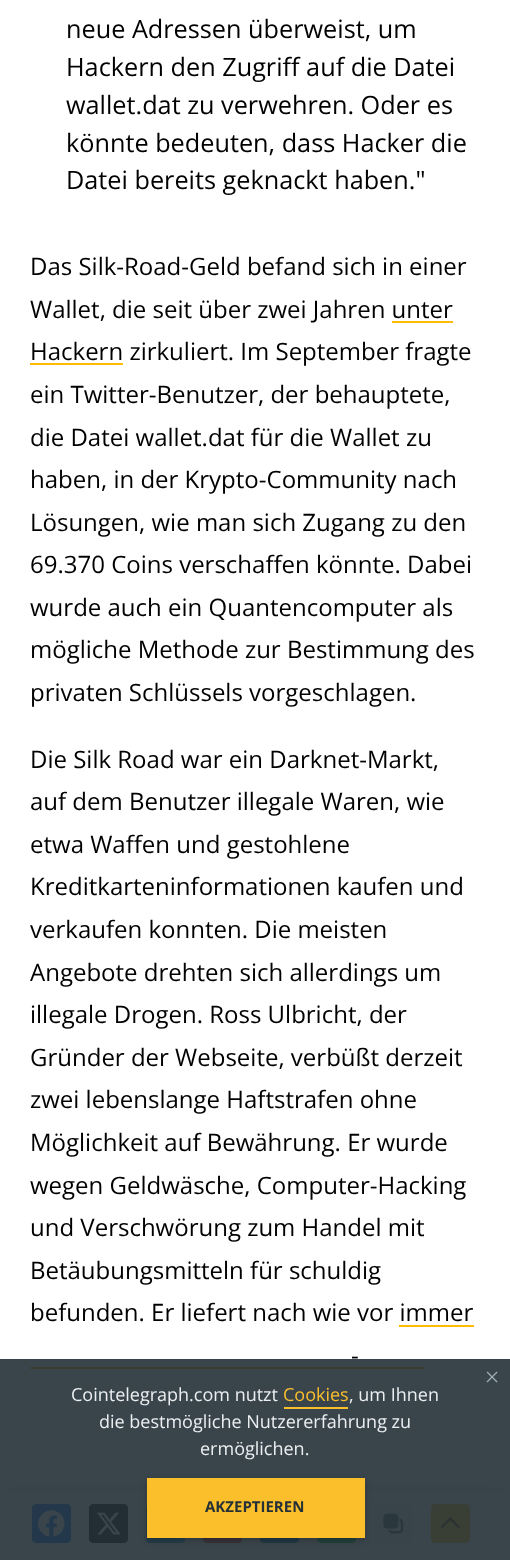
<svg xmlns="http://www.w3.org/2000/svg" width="510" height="1560">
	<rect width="100%" height="100%" fill="#FFFFFF" />
	<g font-family="Open Sans" font-size="25.25" fill="#000000">
		<text x="66" y="38">neue Adressen überweist, um</text>
		<text x="66" y="76">Hackern den Zugriff auf die Datei</text>
		<text x="66" y="114">wallet.dat zu verwehren. Oder es</text>
		<text x="66" y="152">könnte bedeuten, dass Hacker die</text>
		<text x="66" y="189">Datei bereits geknackt haben."</text>
	</g>
	<g font-family="Open Sans" font-size="24" fill="#000000">
		<text x="30" y="275">Das Silk-Road-Geld befand sich in einer</text>
		<text x="30" y="318">Wallet, die seit über zwei Jahren unter</text>
	</g>
	<rect x="30" y="363" width="93" height="2" fill="#FFBB00" />
	<text x="30" y="360" font-family="Open Sans" font-size="24" fill="#000000">Hackern zirkuliert. Im September fragte</text>
	<rect x="392" y="321" width="61" height="2" fill="#FFBB00" />
	<g font-family="Open Sans" font-size="24" fill="#000000">
		<text x="30" y="403">ein Twitter-Benutzer, der behauptete,</text>
		<text x="30" y="446">die Datei wallet.dat für die Wallet zu</text>
		<text x="30" y="488">haben, in der Krypto-Community nach</text>
		<text x="30" y="531">Lösungen, wie man sich Zugang zu den</text>
		<text x="30" y="573">69.370 Coins verschaffen könnte. Dabei</text>
		<text x="30" y="616">wurde auch ein Quantencomputer als</text>
		<text x="30" y="658">mögliche Methode zur Bestimmung des</text>
		<text x="30" y="701">privaten Schlüssels vorgeschlagen.</text>
		<text x="30" y="768">Die Silk Road war ein Darknet-Markt,</text>
		<text x="30" y="810">auf dem Benutzer illegale Waren, wie</text>
		<text x="30" y="853">etwa Waffen und gestohlene</text>
		<text x="30" y="895">Kreditkarteninformationen kaufen und</text>
		<text x="30" y="938">verkaufen konnten. Die meisten</text>
		<text x="30" y="981">Angebote drehten sich allerdings um</text>
		<text x="30" y="1023">illegale Drogen. Ross Ulbricht, der</text>
		<text x="30" y="1066">Gründer der Webseite, verbüßt derzeit</text>
		<text x="30" y="1108">zwei lebenslange Haftstrafen ohne</text>
		<text x="30" y="1151">Möglichkeit auf Bewährung. Er wurde</text>
		<text x="30" y="1194">wegen Geldwäsche, Computer-Hacking</text>
		<text x="30" y="1236">und Verschwörung zum Handel mit</text>
		<text x="30" y="1279">Betäubungsmitteln für schuldig</text>
		<text x="30" y="1321">befunden. Er liefert nach wie vor immer</text>
		<text x="351" y="1364">-</text>
	</g>
	<rect x="399" y="1325" width="75" height="2" fill="#FFBB00" />
	<rect x="30" y="1367" width="395" height="2" fill="#FFBB00" />
	<rect x="0" y="1496" width="510" height="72" fill="#000000" fill-opacity="0.15" filter="blur(15px)" />
	<rect x="0" y="1493" width="510" height="67" fill="#FFFFFF" />
	<image x="32" y="1504" width="39" height="39" href="assets/img1.png" />
	<image x="89" y="1504" width="39" height="39" href="assets/img2.png" />
	<image x="146" y="1505" width="39" height="38" href="assets/img3.png" />
	<image x="203" y="1538" width="39" height="5" href="assets/img4.png" />
	<image x="260" y="1538" width="39" height="5" href="assets/img5.png" />
	<image x="317" y="1538" width="39" height="5" href="assets/img6.png" />
	<image x="374" y="1504" width="39" height="39" href="assets/img7.png" />
	<image x="431" y="1504" width="39" height="39" href="assets/img8.png" />
	<rect x="0" y="1359" width="510" height="201" fill="#253137" fill-opacity="0.9" />
	<image x="486" y="1371" width="12" height="12" href="assets/img9.png" />
	<text x="71" y="1401" font-family="Open Sans" font-size="18" fill="#ECEFF1">Cointelegraph.com nutzt</text>
	<text x="283" y="1401" font-family="Open Sans" font-size="18" fill="#FABF2C">Cookies</text>
	<rect x="284" y="1407" width="64" height="2" fill="#FABF2C" />
	<g font-family="Open Sans" font-size="18" fill="#ECEFF1">
		<text x="349" y="1401">, um Ihnen</text>
		<text x="99" y="1428">die bestmögliche Nutzererfahrung zu</text>
		<text x="200" y="1455">ermöglichen.</text>
	</g>
	<rect x="147" y="1481" width="218" height="60" fill="#000000" fill-opacity="0.2" filter="blur(3px)" />
	<rect x="147" y="1478" width="218" height="60" fill="#FABF2B" />
	<text x="205" y="1512" font-family="Open Sans" font-size="15" font-weight="700" fill="#253137">AKZEPTIEREN</text>
</svg>
